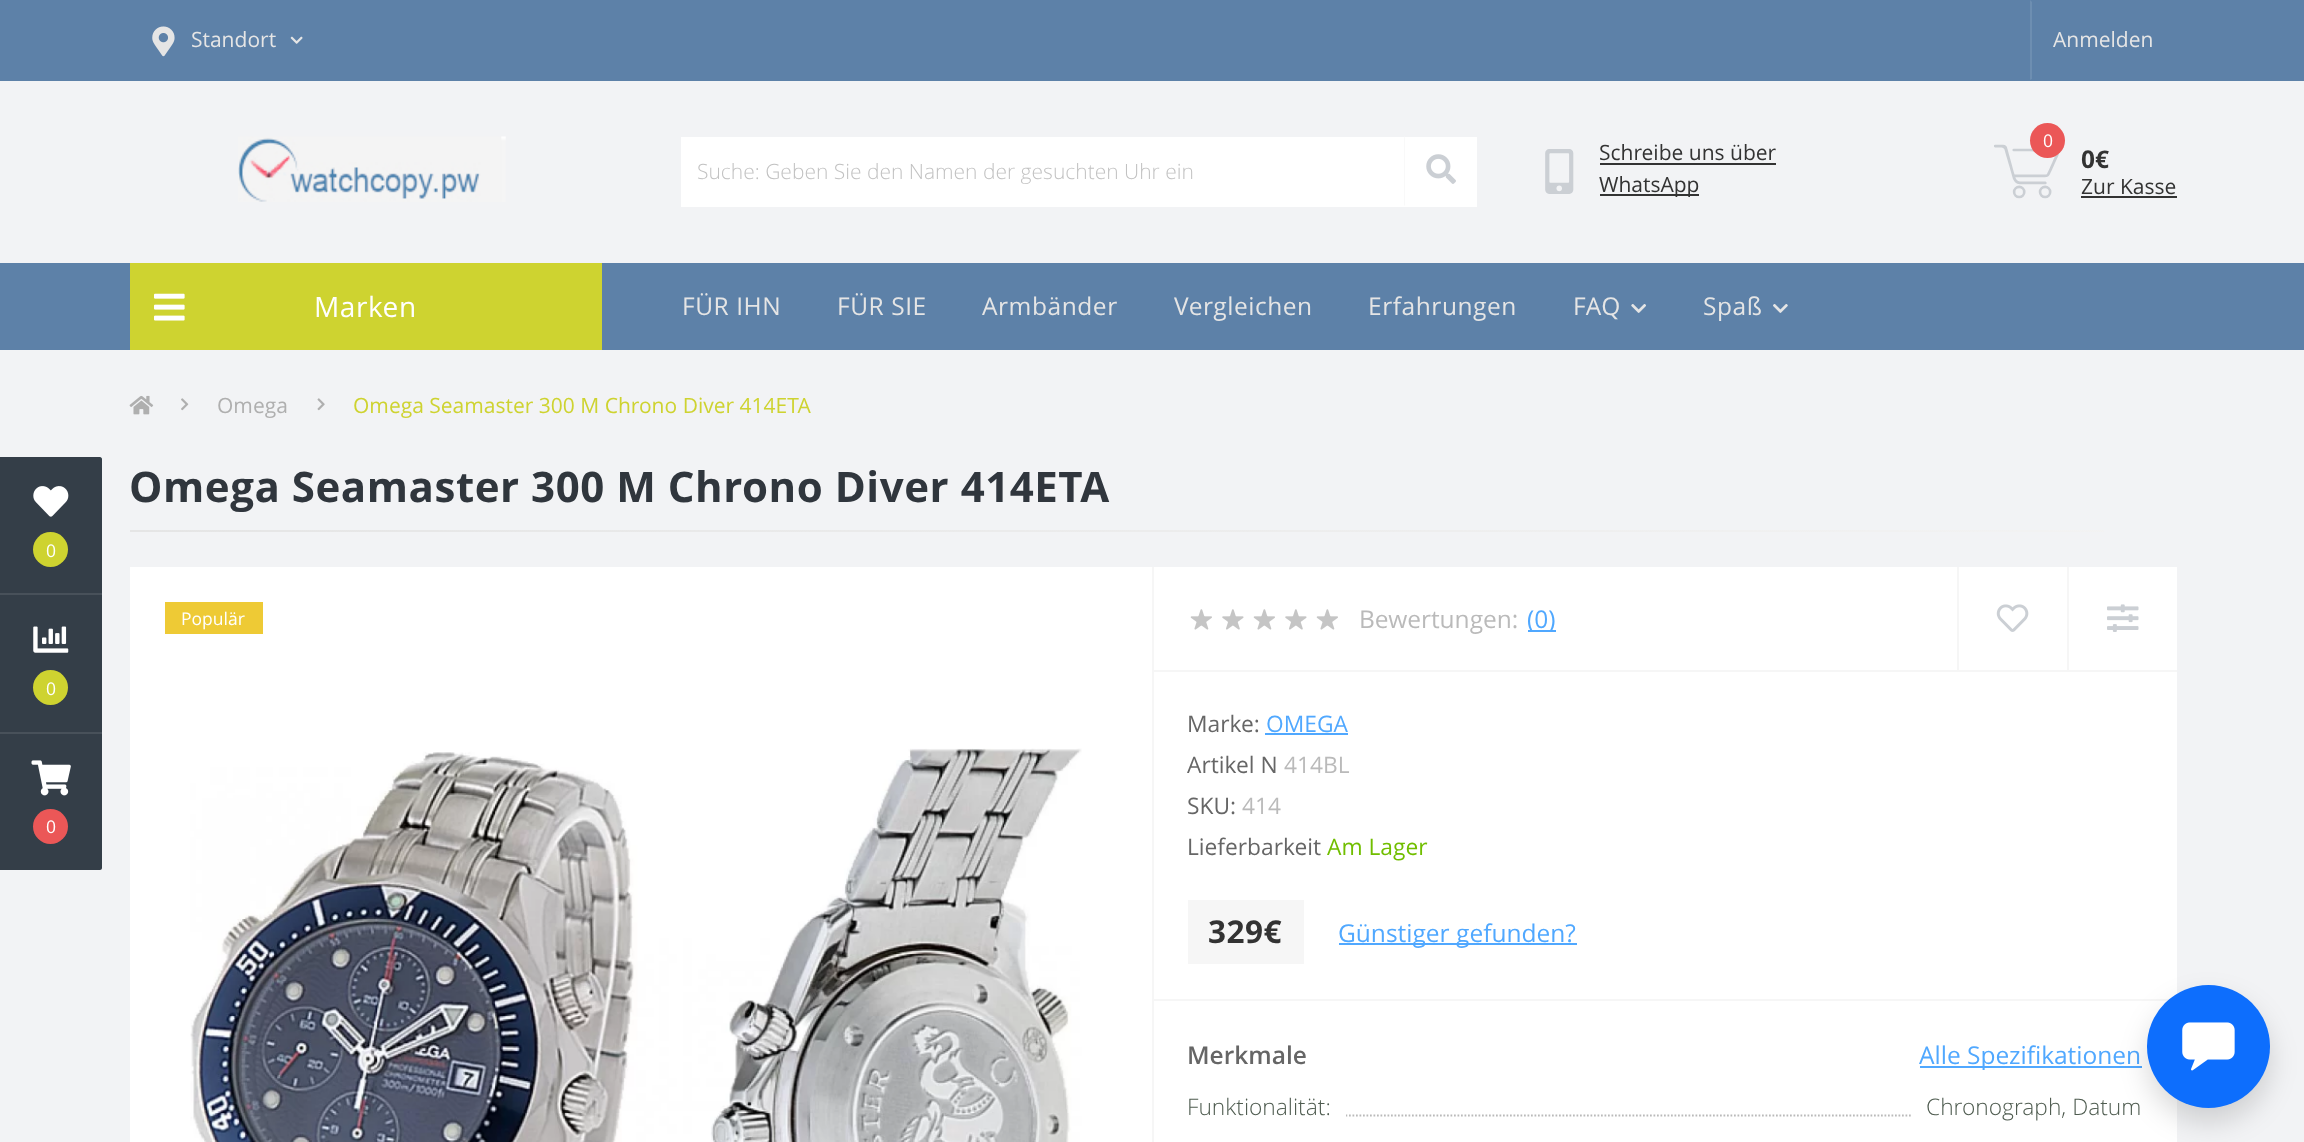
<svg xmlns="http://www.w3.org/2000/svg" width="2304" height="1142">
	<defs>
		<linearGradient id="g1" gradientUnits="userSpaceOnUse" x1="130" y1="532" x2="2177" y2="530"><stop offset="0" stop-color="#E5E5E5" /><stop offset="1" stop-color="#F3F3F3" /></linearGradient>
	</defs>
	<rect width="100%" height="100%" fill="#F2F3F5" />
	<rect x="0" y="0" width="2304" height="81" fill="#5D81A8" />
	<image x="152" y="26" width="23" height="31" href="assets/img1.png" />
	<text x="191" y="47" font-family="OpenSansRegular" font-size="21" fill="#E5E5E5">Standort</text>
	<image x="290" y="36" width="13" height="8" href="assets/img2.png" />
	<path d="M2030 80V0L2032 2V79Z" fill="#6D8EB1" />
	<text x="2053" y="47" font-family="OpenSansRegular" font-size="21" fill="#E5E5E5">Anmelden</text>
	<image x="238" y="136" width="268" height="66" href="assets/img3.png" />
	<rect x="681" y="137" width="796" height="70" fill="#FFFFFF" />
	<text x="697" y="179" font-family="Open Sans" font-size="21" font-weight="300" fill="#C2C2C2">Suche: Geben Sie den Namen der gesuchten Uhr ein</text>
	<path d="M1404 206V136L1405 138V205Z" fill="#F9F9F9" />
	<image x="1426" y="154" width="30" height="30" href="assets/img4.png" />
	<image x="1545" y="149" width="29" height="45" href="assets/img5.png" />
	<text x="1599" y="160" font-family="OpenSansRegular" font-size="21" fill="#333333">Schreibe uns über</text>
	<rect x="1600" y="163" width="176" height="2" fill="#333333" />
	<rect x="1600" y="194" width="99" height="2" fill="#333333" />
	<text x="1599" y="192" font-family="OpenSansRegular" font-size="21" fill="#333333">WhatsApp</text>
	<image x="1994" y="144" width="66" height="55" href="assets/img6.png" />
	<circle cx="2047.5" cy="140.5" r="17.5" fill="#EB5757" />
	<text x="2043" y="147" font-family="OpenSansRegular" font-size="17.5" fill="#FFFFFF">0</text>
	<text x="2081" y="168" font-family="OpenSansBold" font-size="24.5" font-weight="700" fill="#333333">0€</text>
	<text x="2081" y="194" font-family="OpenSansRegular" font-size="21" fill="#333333">Zur Kasse</text>
	<rect x="2081" y="196" width="96" height="2" fill="#333333" />
	<rect x="0" y="263" width="2304" height="87" fill="#5D81A8" />
	<rect x="130" y="263" width="472" height="87" fill="#CED330" />
	<image x="154" y="293" width="31" height="28" href="assets/img7.png" />
	<text x="314" y="317" font-family="OpenSansRegular" font-size="28" letter-spacing="0.55" fill="#FFFFFF">Marken</text>
	<g font-family="OpenSansRegular" font-size="24.5" letter-spacing="0.55" fill="#E5E5E5">
		<text x="682" y="315">FÜR IHN</text>
		<text x="837" y="315">FÜR SIE</text>
		<text x="982" y="315">Armbänder</text>
		<text x="1174" y="315">Vergleichen</text>
		<text x="1368" y="315">Erfahrungen</text>
		<text x="1573" y="315">FAQ</text>
	</g>
	<image x="1631" y="304" width="15" height="9" href="assets/img8.png" />
	<text x="1703" y="315" font-family="OpenSansRegular" font-size="24.5" letter-spacing="0.55" fill="#E5E5E5">Spaß</text>
	<image x="1773" y="304" width="15" height="9" href="assets/img9.png" />
	<path d="M0 457H100C101 457 102 458 102 459V868C102 869 101 870 100 870H0Z" fill="#343E48" />
	<image x="33" y="486" width="36" height="31" href="assets/img10.png" />
	<circle cx="50.5" cy="549.5" r="17.5" fill="#CED330" />
	<text x="46" y="557" font-family="OpenSansRegular" font-size="17.5" fill="#FFFFFF">0</text>
	<rect x="0" y="593" width="102" height="2" fill="#48515A" />
	<image x="33" y="626" width="36" height="27" href="assets/img11.png" />
	<circle cx="50.5" cy="687.5" r="17.5" fill="#CED330" />
	<text x="46" y="695" font-family="OpenSansRegular" font-size="17.5" fill="#FFFFFF">0</text>
	<rect x="0" y="732" width="102" height="2" fill="#48515A" />
	<image x="31" y="760" width="40" height="36" href="assets/img12.png" />
	<circle cx="50.5" cy="826.5" r="17.5" fill="#EB5757" />
	<text x="46" y="833" font-family="OpenSansRegular" font-size="17.5" fill="#FFFFFF">0</text>
	<image x="129" y="395" width="25" height="20" href="assets/img13.png" />
	<image x="181" y="398" width="8" height="13" href="assets/img14.png" />
	<text x="217" y="413" font-family="OpenSansRegular" font-size="21" fill="#AFAFAF">Omega</text>
	<image x="317" y="398" width="8" height="13" href="assets/img15.png" />
	<text x="353" y="413" font-family="OpenSansRegular" font-size="21" fill="#CED330">Omega Seamaster 300 M Chrono Diver 414ETA</text>
	<text x="129" y="502" font-family="OpenSansBold" font-size="42" font-weight="700" letter-spacing="0.55" fill="#30363D">Omega Seamaster 300 M Chrono Diver 414ETA</text>
	<rect x="130" y="530" width="1974" height="2" fill="url(#g1)" />
	<rect x="130" y="567" width="2047" height="575" fill="#FFFFFF" />
	<rect x="1153" y="670" width="1024" height="2" fill="#F6F6F6" />
	<rect x="1153" y="999" width="1024" height="2" fill="#F6F6F6" />
	<rect x="1152" y="567" width="2" height="575" fill="#F6F6F6" />
	<rect x="165" y="602" width="98" height="32" fill="#EECA35" />
	<text x="181" y="625" font-family="OpenSansRegular" font-size="17.5" fill="#FFFFFF">Populär</text>
	<image x="190" y="748" width="892" height="394" href="assets/img16.png" />
	<image x="1190" y="609" width="22" height="21" href="assets/img17.png" />
	<image x="1222" y="609" width="22" height="21" href="assets/img18.png" />
	<image x="1253" y="609" width="22" height="21" href="assets/img17.png" />
	<image x="1285" y="609" width="22" height="21" href="assets/img18.png" />
	<image x="1316" y="609" width="22" height="21" href="assets/img17.png" />
	<text x="1359" y="628" font-family="OpenSansRegular" font-size="24.5" fill="#BABABA">Bewertungen:</text>
	<rect x="1528" y="630" width="28" height="2" fill="#50A8FF" />
	<text x="1527" y="628" font-family="OpenSansRegular" font-size="24.5" fill="#50A8FF">(0)</text>
	<rect x="1957" y="567" width="2" height="103" fill="#F6F6F6" />
	<image x="1996" y="604" width="33" height="28" href="assets/img19.png" />
	<rect x="2067" y="567" width="2" height="103" fill="#F6F6F6" />
	<image x="2107" y="604" width="32" height="28" href="assets/img20.png" />
	<text x="1187" y="732" font-family="OpenSansRegular" font-size="22.75" fill="#666666">Marke:</text>
	<text x="1266" y="732" font-family="OpenSansRegular" font-size="22.75" fill="#50A8FF">OMEGA</text>
	<rect x="1265" y="733" width="83" height="2" fill="#50A8FF" />
	<text x="1187" y="773" font-family="OpenSansRegular" font-size="22.75" fill="#666666">Artikel N</text>
	<text x="1284" y="773" font-family="OpenSansRegular" font-size="22.75" fill="#BABABA">414BL</text>
	<text x="1187" y="814" font-family="OpenSansRegular" font-size="22.75" fill="#666666">SKU:</text>
	<text x="1242" y="814" font-family="OpenSansRegular" font-size="22.75" fill="#BABABA">414</text>
	<text x="1187" y="855" font-family="OpenSansRegular" font-size="22.75" fill="#666666">Lieferbarkeit</text>
	<text x="1327" y="855" font-family="OpenSansRegular" font-size="22.75" fill="#71BE00">Am Lager</text>
	<rect x="1188" y="900" width="116" height="64" fill="#F6F6F6" />
	<text x="1208" y="943" font-family="OpenSansBold" font-size="31.5" font-weight="700" letter-spacing="0.55" fill="#333333">329€</text>
	<rect x="1339" y="943" width="238" height="2" fill="#50A8FF" />
	<text x="1338" y="942" font-family="OpenSansRegular" font-size="24.5" fill="#50A8FF">Günstiger gefunden?</text>
	<text x="1187" y="1064" font-family="Open Sans" font-size="24.5" font-weight="600" fill="#666666">Merkmale</text>
	<rect x="1920" y="1066" width="222" height="2" fill="#50A8FF" />
	<text x="1919" y="1064" font-family="OpenSansRegular" font-size="24.5" fill="#50A8FF">Alle Spezifikationen</text>
	<path d="M1188 1115.5H2142" fill="none" stroke="#BABABA" stroke-width="1.8" stroke-dasharray="1.75 1.75" />
	<rect x="1188" y="1114" width="158" height="3" fill="#FFFFFF" />
	<text x="1187" y="1115" font-family="Open Sans" font-size="22.75" font-weight="300" fill="#4F5C50">Funktionalität:</text>
	<rect x="1912" y="1114" width="230" height="3" fill="#FFFFFF" />
	<text x="1926" y="1115" font-family="Open Sans" font-size="22.75" font-weight="300" fill="#4F5C50">Chronograph, Datum</text>
	<rect x="2147" y="999" width="123" height="123" rx="61.5" fill="#000000" fill-opacity="0.15" filter="blur(14px)" />
	<circle cx="2208.5" cy="1046.5" r="61.5" fill="#0D6EFD" />
	<image x="2182" y="1022" width="53" height="49" href="assets/img21.png" />
</svg>
